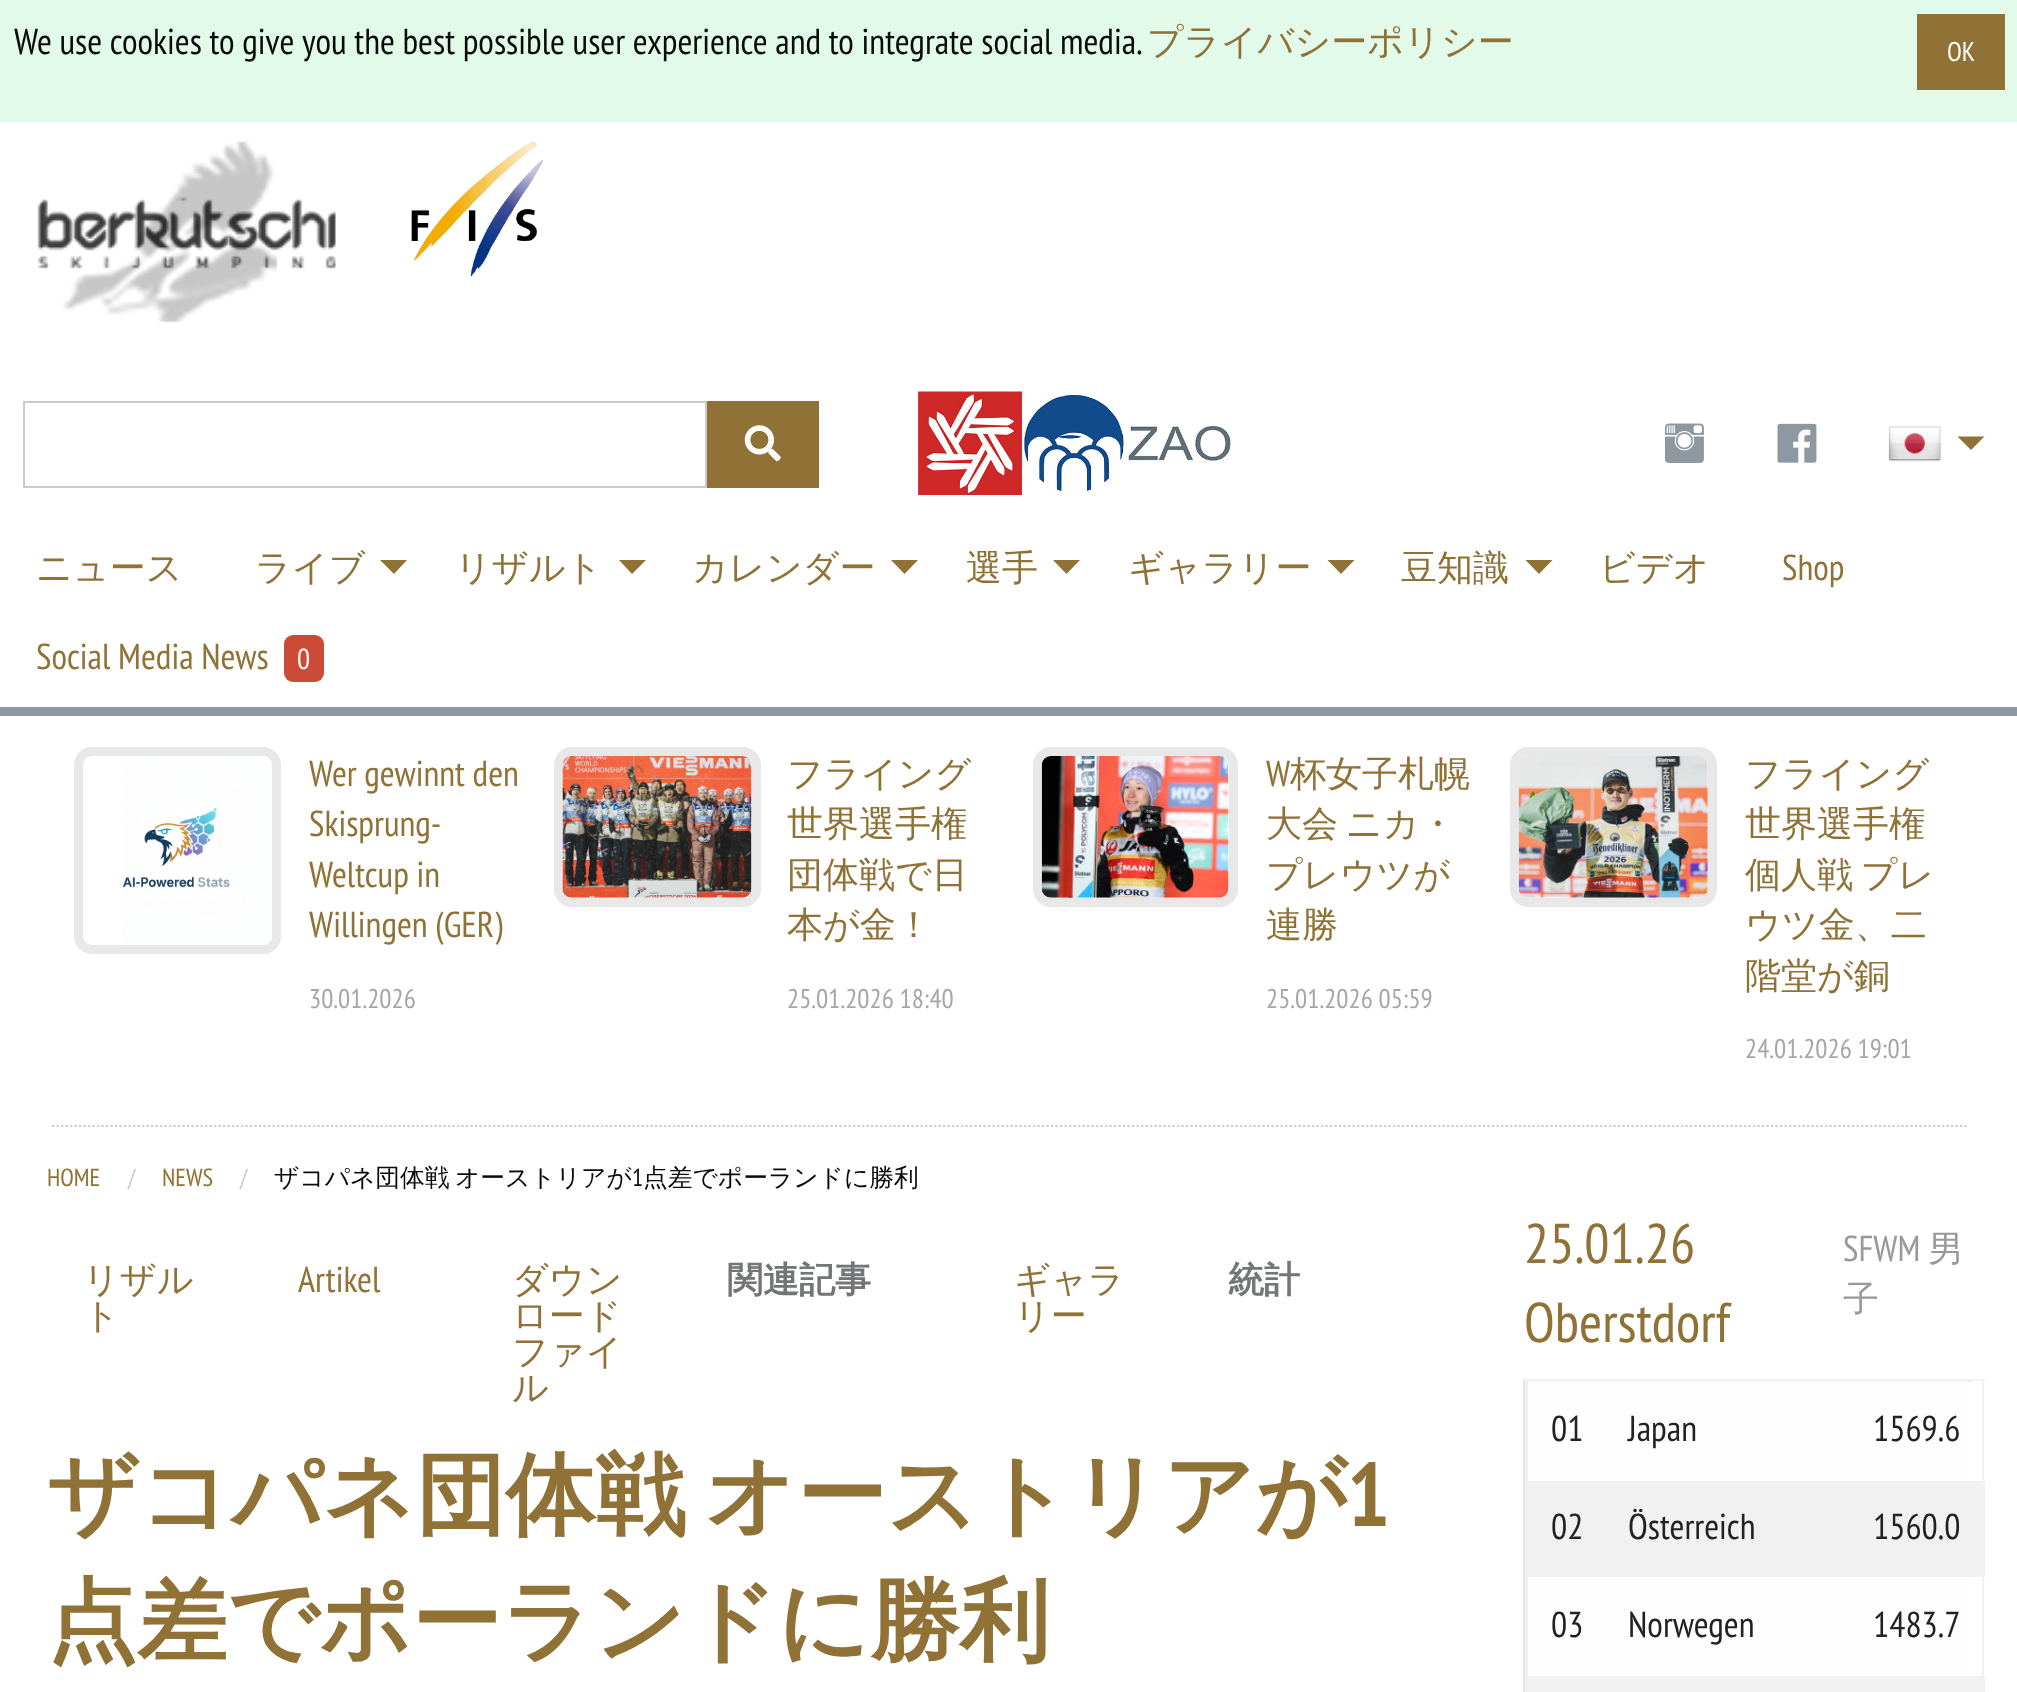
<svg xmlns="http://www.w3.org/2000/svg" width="2017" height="1692">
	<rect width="100%" height="100%" fill="#FFFFFF" />
	<rect x="0" y="0" width="2017" height="122" fill="#E1FAEA" />
	<text x="14" y="54" font-family="PT Sans Narrow" font-size="36" fill="#0A0A0A">We use cookies to give you the best possible user experience and to integrate social media.</text>
	<text x="1147" y="54" font-family="WenQuanYi Zen Hei" font-size="36" font-weight="500" fill="#907237">プライバシーポリシー</text>
	<rect x="1917" y="14" width="88" height="76" fill="#907237" />
	<text x="1947" y="61" font-family="PT Sans Narrow" font-size="27" fill="#FEFEFE">OK</text>
	<image x="37" y="141" width="299" height="182" href="assets/img1.png" />
	<image x="411" y="142" width="132" height="135" href="assets/img2.png" />
	<rect x="24" y="402" width="682" height="85" fill="none" stroke="#CACACA" stroke-width="2" />
	<rect x="707" y="401" width="112" height="87" fill="#907237" />
	<image x="744" y="425" width="37" height="37" href="assets/img3.png" />
	<image x="918" y="391" width="313" height="104" href="assets/img4.png" />
	<image x="1665" y="423" width="39" height="40" href="assets/img5.png" />
	<image x="1777" y="423" width="40" height="40" href="assets/img6.png" />
	<image x="1888" y="426" width="53" height="36" href="assets/img7.png" />
	<path d="M1957.5 436.5H1984.5L1971 450Z" fill="#907237" />
	<rect x="0" y="707" width="2017" height="9" fill="#8E98A1" />
	<g font-family="WenQuanYi Zen Hei" font-size="36" font-weight="500" fill="#907237">
		<text x="36" y="580">ニュース</text>
		<text x="255" y="580">ライブ</text>
	</g>
	<path d="M380 560H407L394 574Z" fill="#907237" />
	<text x="455" y="580" font-family="WenQuanYi Zen Hei" font-size="36" font-weight="500" fill="#907237">リザルト</text>
	<path d="M619 560H646L632 574Z" fill="#907237" />
	<text x="692" y="580" font-family="WenQuanYi Zen Hei" font-size="36" font-weight="500" fill="#907237">カレンダー</text>
	<path d="M891 560H918L904.5 574Z" fill="#907237" />
	<text x="966" y="580" font-family="WenQuanYi Zen Hei" font-size="36" font-weight="500" fill="#907237">選手</text>
	<path d="M1053 560H1080L1066.5 574Z" fill="#907237" />
	<text x="1128" y="580" font-family="WenQuanYi Zen Hei" font-size="36" font-weight="500" fill="#907237">ギャラリー</text>
	<path d="M1327.5 560H1354.5L1341 574Z" fill="#907237" />
	<text x="1401" y="580" font-family="WenQuanYi Zen Hei" font-size="36" font-weight="500" fill="#907237">豆知識</text>
	<path d="M1525.5 560H1552.5L1539 574Z" fill="#907237" />
	<text x="1599" y="580" font-family="WenQuanYi Zen Hei" font-size="36" font-weight="500" fill="#907237">ビデオ</text>
	<g font-family="PT Sans Narrow" font-size="36" fill="#907237">
		<text x="1782" y="580">Shop</text>
		<text x="36" y="669">Social Media News</text>
	</g>
	<rect x="284" y="635" width="40" height="47" rx="9" fill="#CC4B37" />
	<text x="297" y="669" font-family="PT Sans Narrow" font-size="29" fill="#FEFEFE">0</text>
	<path d="M52 1126H1966.5" fill="none" stroke="#CCCCCC" stroke-width="2.2" stroke-dasharray="2.25 2.25" />
	<rect x="78.5" y="751.5" width="198" height="198" rx="13.5" fill="none" stroke="#E8E8E8" stroke-width="9" />
	<image x="122" y="756" width="150" height="189" href="assets/img8.png" />
	<g font-family="PT Sans Narrow" font-size="36" fill="#907237">
		<text x="309" y="786">Wer gewinnt den</text>
		<text x="309" y="836">Skisprung-</text>
		<text x="309" y="887">Weltcup in</text>
		<text x="309" y="937">Willingen (GER)</text>
	</g>
	<text x="309" y="1008" font-family="PT Sans Narrow" font-size="27" fill="#A6A6A6">30.01.2026</text>
	<rect x="558.5" y="751.5" width="198" height="151" rx="13.5" fill="none" stroke="#E8E8E8" stroke-width="9" />
	<image x="562" y="756" width="190" height="142" href="assets/img9.png" />
	<g font-family="WenQuanYi Zen Hei" font-size="36" font-weight="500" fill="#907237">
		<text x="787" y="786">フライング</text>
		<text x="787" y="836">世界選手権</text>
		<text x="787" y="887">団体戦で日</text>
		<text x="787" y="937">本が金！</text>
	</g>
	<text x="787" y="1008" font-family="PT Sans Narrow" font-size="27" fill="#A6A6A6">25.01.2026 18:40</text>
	<rect x="1037.5" y="751.5" width="196" height="151" rx="13.5" fill="none" stroke="#E8E8E8" stroke-width="9" />
	<image x="1041" y="756" width="188" height="142" href="assets/img10.png" />
	<text x="1266" y="786" font-family="PT Sans Narrow" font-size="36" fill="#907237">W</text>
	<g font-family="WenQuanYi Zen Hei" font-size="36" font-weight="500" fill="#907237">
		<text x="1290" y="786">杯女子札幌</text>
		<text x="1266" y="836" word-spacing="-3">大会 ニカ・</text>
		<text x="1266" y="887">プレウツが</text>
		<text x="1266" y="937">連勝</text>
	</g>
	<text x="1266" y="1008" font-family="PT Sans Narrow" font-size="27" fill="#A6A6A6">25.01.2026 05:59</text>
	<rect x="1514.5" y="751.5" width="198" height="151" rx="13.5" fill="none" stroke="#E8E8E8" stroke-width="9" />
	<image x="1518" y="756" width="190" height="142" href="assets/img11.png" />
	<g font-family="WenQuanYi Zen Hei" font-size="36" font-weight="500" fill="#907237">
		<text x="1745" y="786">フライング</text>
		<text x="1745" y="836">世界選手権</text>
		<text x="1745" y="887" word-spacing="-3">個人戦 プレ</text>
		<text x="1745" y="937">ウツ金、二</text>
		<text x="1745" y="988">階堂が銅</text>
	</g>
	<text x="1745" y="1058" font-family="PT Sans Narrow" font-size="27" fill="#A6A6A6">24.01.2026 19:01</text>
	<text x="47" y="1186" font-family="PT Sans Narrow" font-size="24.75" fill="#907237">HOME</text>
	<text x="128" y="1186" font-family="PT Sans Narrow" font-size="24.75" fill="#CACACA">/</text>
	<text x="162" y="1186" font-family="PT Sans Narrow" font-size="24.75" fill="#907237">NEWS</text>
	<text x="240" y="1186" font-family="PT Sans Narrow" font-size="24.75" fill="#CACACA">/</text>
	<text x="274" y="1186" word-spacing="-2" font-family="WenQuanYi Zen Hei" font-size="24.75" font-weight="500" fill="#0A0A0A">ザコパネ団体戦 オーストリアが</text>
	<text x="632" y="1186" font-family="PT Sans Narrow" font-size="24.75" fill="#0A0A0A">1</text>
	<text x="643" y="1186" font-family="WenQuanYi Zen Hei" font-size="24.75" font-weight="500" fill="#0A0A0A">点差でポーランドに勝利</text>
	<g font-family="WenQuanYi Zen Hei" font-size="36" font-weight="500" fill="#907237">
		<text x="83" y="1292">リザル</text>
		<text x="83" y="1328">ト</text>
	</g>
	<text x="298" y="1292" font-family="PT Sans Narrow" font-size="36" fill="#907237">Artikel</text>
	<g font-family="WenQuanYi Zen Hei" font-size="36" font-weight="500" fill="#907237">
		<text x="512" y="1292">ダウン</text>
		<text x="512" y="1328">ロード</text>
		<text x="512" y="1364">ファイ</text>
		<text x="512" y="1400">ル</text>
	</g>
	<text x="727" y="1292" font-family="WenQuanYi Zen Hei" font-size="36" font-weight="700" fill="#737576">関連記事</text>
	<g font-family="WenQuanYi Zen Hei" font-size="36" font-weight="500" fill="#907237">
		<text x="1014" y="1292">ギャラ</text>
		<text x="1014" y="1328">リー</text>
	</g>
	<text x="1228" y="1292" font-family="WenQuanYi Zen Hei" font-size="36" font-weight="700" fill="#737576">統計</text>
	<text x="47" y="1526" word-spacing="-8" font-family="WenQuanYi Zen Hei" font-size="90" font-weight="700" fill="#907237">ザコパネ団体戦 オーストリアが</text>
	<text x="1347" y="1526" font-family="PT Sans Narrow" font-size="90" font-weight="700" fill="#907237">1</text>
	<text x="47" y="1652" font-family="WenQuanYi Zen Hei" font-size="90" font-weight="700" fill="#907237">点差でポーランドに勝利</text>
	<text x="1524" y="1263" font-family="PT Sans Narrow" font-size="56" fill="#907237">25.01.26</text>
	<text x="1843" y="1261" font-family="PT Sans Narrow" font-size="36" fill="#999999">SFWM</text>
	<g font-family="WenQuanYi Zen Hei" font-size="36" font-weight="500" fill="#999999">
		<text x="1928" y="1261">男</text>
		<text x="1843" y="1311">子</text>
	</g>
	<text x="1524" y="1342" font-family="PT Sans Narrow" font-size="56" fill="#907237">Oberstdorf</text>
	<rect x="1525" y="1379" width="444" height="313" fill="#F2F3F4" />
	<rect x="1969" y="1379" width="2" height="3" fill="#E6E6E6" />
	<rect x="1523" y="1379" width="2" height="313" fill="#E6E6E6" />
	<rect x="1528" y="1382" width="441" height="294" fill="#FEFEFE" />
	<rect x="1526" y="1379" width="459" height="2" fill="#F1F1F1" />
	<rect x="1528" y="1481" width="457" height="96" fill="#F1F1F1" />
	<rect x="1982" y="1379" width="2" height="297" fill="#F1F1F1" />
	<rect x="1526" y="1379" width="2" height="313" fill="#F1F1F1" />
	<g font-family="PT Sans Narrow" font-size="36" fill="#222222">
		<text x="1551" y="1441">01</text>
		<text x="1628" y="1441">Japan</text>
		<text x="1873" y="1441">1569.6</text>
		<text x="1551" y="1539">02</text>
		<text x="1628" y="1539">Österreich</text>
		<text x="1873" y="1539">1560.0</text>
		<text x="1551" y="1637">03</text>
		<text x="1628" y="1637">Norwegen</text>
		<text x="1873" y="1637">1483.7</text>
	</g>
	<rect x="1528" y="1676" width="457" height="16" fill="#F1F1F1" />
</svg>
